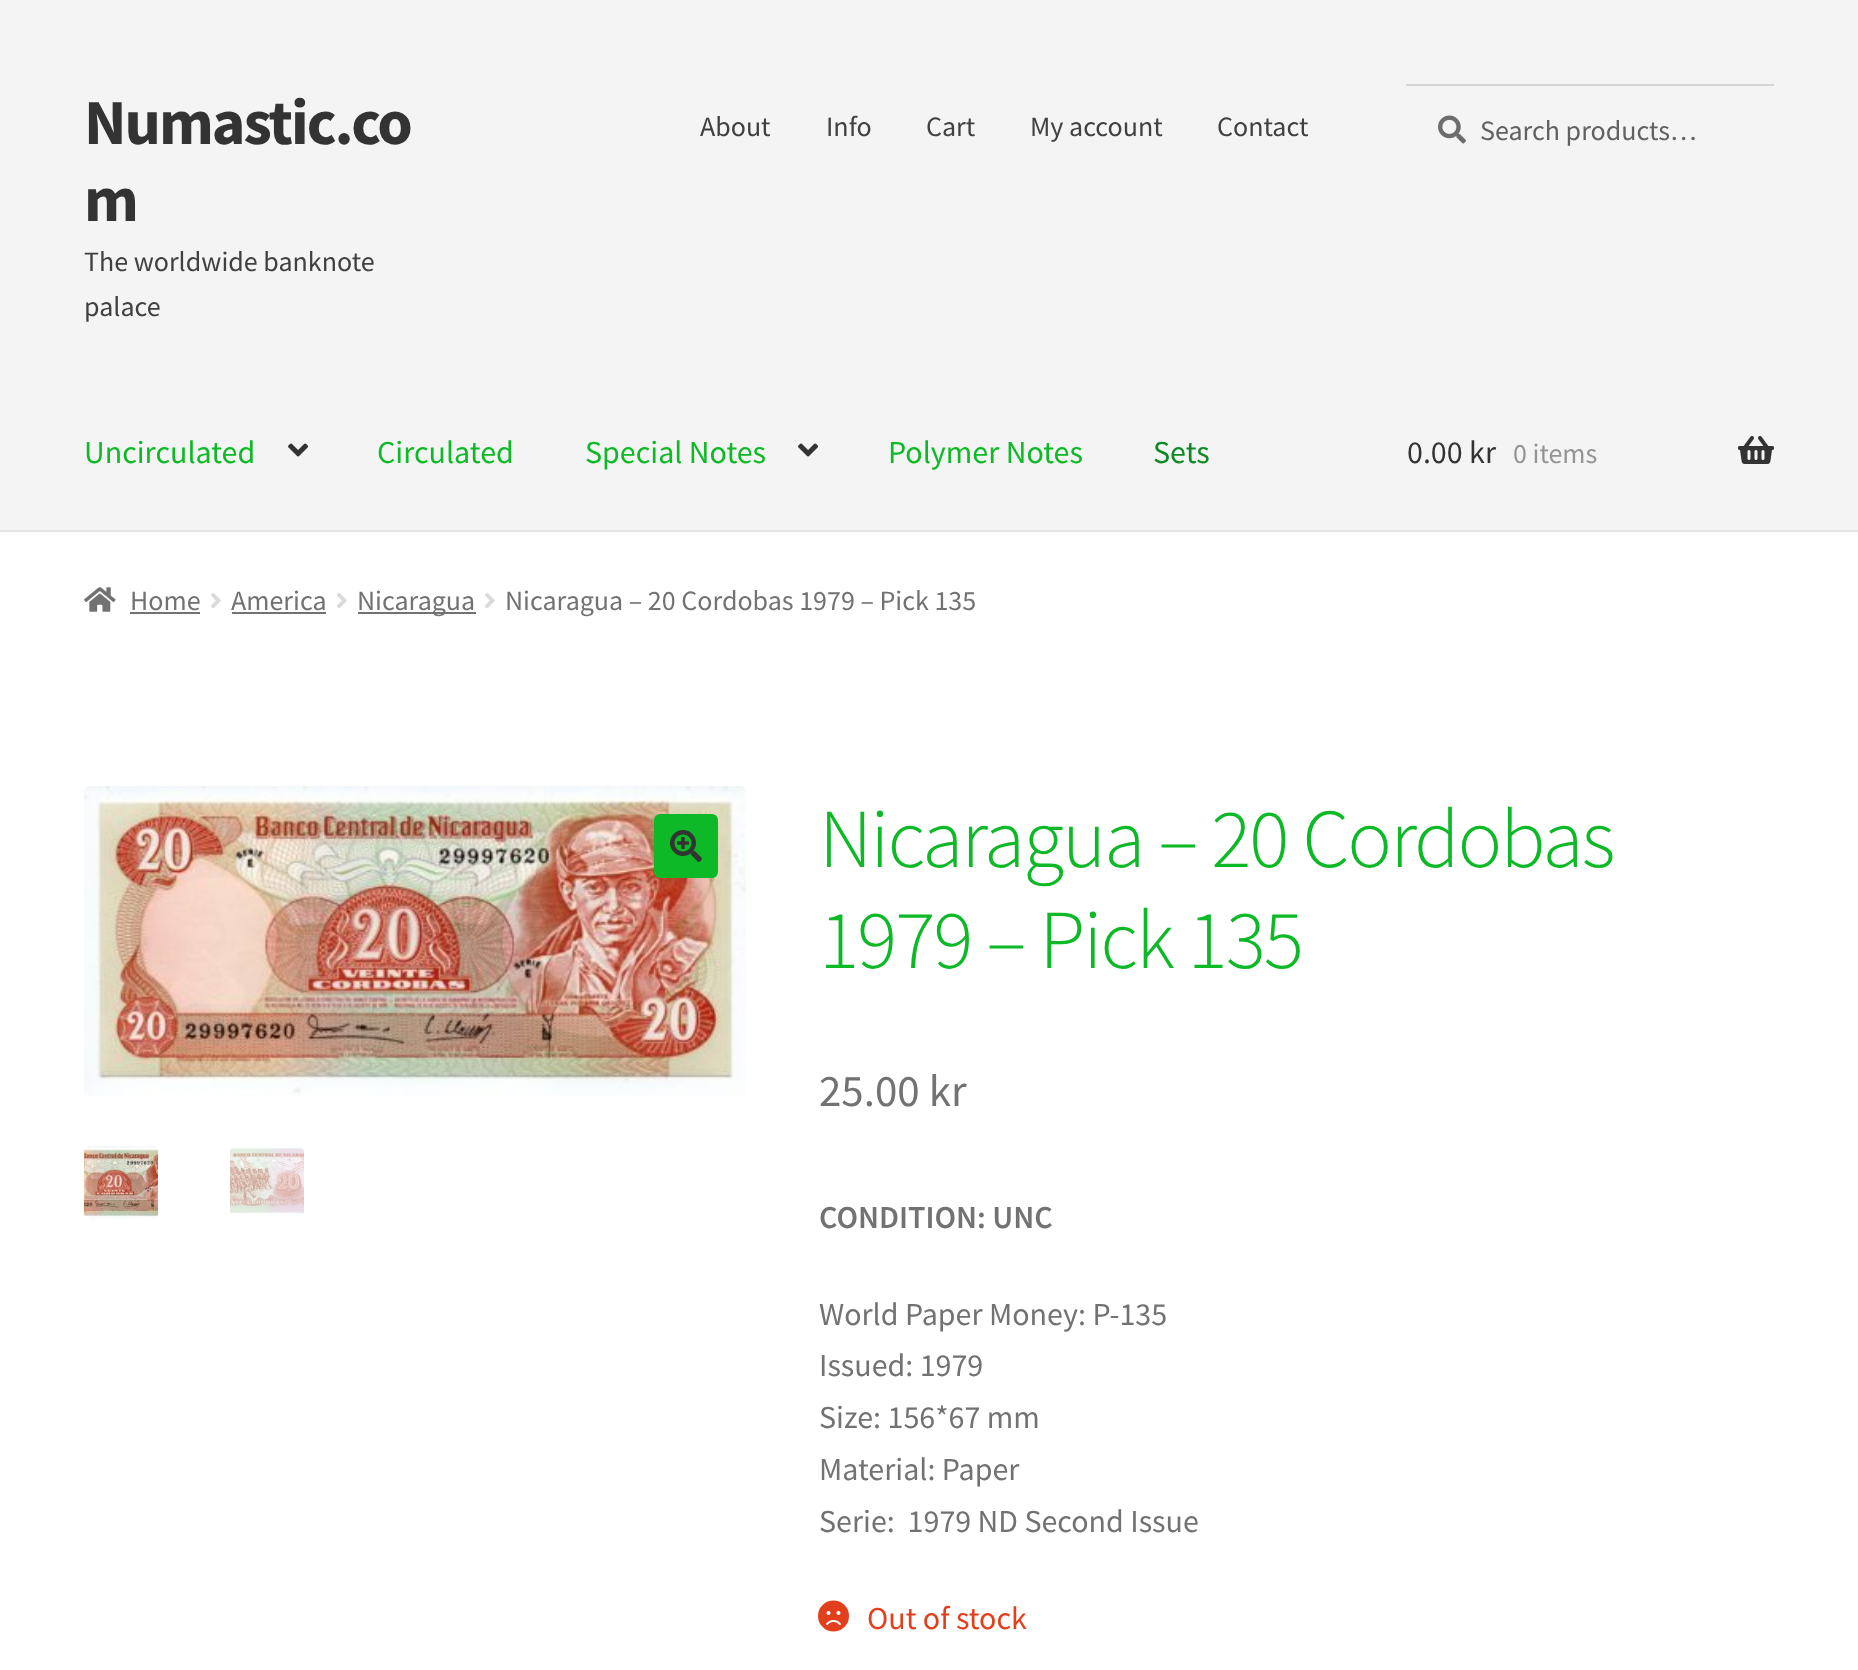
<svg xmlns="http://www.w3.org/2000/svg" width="1858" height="1670">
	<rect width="100%" height="100%" fill="#FFFFFF" />
	<rect x="0" y="0" width="1858" height="530" fill="#F4F4F4" />
	<rect x="0" y="530" width="1858" height="2" fill="#E5E5E5" />
	<g font-family="Source Sans Pro" font-size="64" font-weight="700" letter-spacing="-2" fill="#333333">
		<text x="84" y="144">Numastic.co</text>
		<text x="84" y="221">m</text>
	</g>
	<g font-family="Source Sans Pro" font-size="28" fill="#404040">
		<text x="84" y="271">The worldwide banknote</text>
		<text x="84" y="316">palace</text>
		<text x="700" y="136">About</text>
		<text x="826" y="136">Info</text>
		<text x="926" y="136">Cart</text>
		<text x="1030" y="136">My account</text>
		<text x="1217" y="136">Contact</text>
	</g>
	<image x="1438" y="115" width="28" height="29" href="assets/img1.png" />
	<rect x="1406" y="84" width="368" height="2" fill="#D4D4D4" />
	<text x="1480" y="140" font-family="Source Sans Pro" font-size="28" fill="#616161">Search products…</text>
	<text x="84" y="463" font-family="Source Sans Pro" font-size="32" fill="#0DB926">Uncirculated</text>
	<image x="288" y="443" width="20" height="14" href="assets/img2.png" />
	<g font-family="Source Sans Pro" font-size="32" fill="#0DB926">
		<text x="377" y="463">Circulated</text>
		<text x="585" y="463">Special Notes</text>
	</g>
	<image x="798" y="443" width="20" height="14" href="assets/img2.png" />
	<text x="888" y="463" font-family="Source Sans Pro" font-size="32" fill="#0DB926">Polymer Notes</text>
	<text x="1153" y="463" font-family="Source Sans Pro" font-size="32" fill="#0D8926">Sets</text>
	<text x="1407" y="463" font-family="Source Sans Pro" font-size="32" fill="#333333">0.00 kr</text>
	<text x="1513" y="463" font-family="Source Sans Pro" font-size="28" fill="#949494">0 items</text>
	<image x="1738" y="436" width="36" height="28" href="assets/img3.png" />
	<image x="84" y="587" width="32" height="25" href="assets/img4.png" />
	<text x="130" y="610" font-family="Source Sans Pro" font-size="28" fill="#727272">Home</text>
	<rect x="130" y="612" width="70" height="2" fill="#727272" />
	<image x="211" y="593" width="10" height="16" href="assets/img5.png" />
	<text x="231" y="610" font-family="Source Sans Pro" font-size="28" fill="#727272">America</text>
	<rect x="232" y="612" width="94" height="2" fill="#727272" />
	<image x="337" y="593" width="10" height="16" href="assets/img5.png" />
	<rect x="358" y="612" width="118" height="2" fill="#727272" />
	<text x="357" y="610" font-family="Source Sans Pro" font-size="28" fill="#727272">Nicaragua</text>
	<image x="485" y="593" width="10" height="16" href="assets/img5.png" />
	<text x="505" y="610" font-family="Source Sans Pro" font-size="28" fill="#727272">Nicaragua – 20 Cordobas 1979 – Pick 135</text>
	<image x="84" y="786" width="662" height="310" href="assets/img6.png" />
	<rect x="654" y="814" width="64" height="64" rx="6" fill="#0DB926" />
	<image x="670" y="830" width="32" height="32" href="assets/img7.png" />
	<image x="84" y="1146" width="74" height="74" href="assets/img8.png" />
	<image x="230" y="1146" width="74" height="68" href="assets/img9.png" />
	<g font-family="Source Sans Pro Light" font-size="83.75" font-weight="300" letter-spacing="-2" fill="#0DB926">
		<text x="819" y="867">Nicaragua – 20 Cordobas</text>
		<text x="819" y="968">1979 – Pick 135</text>
	</g>
	<text x="819" y="1106" font-family="Source Sans Pro" font-size="45" fill="#727272">25.00 kr</text>
	<text x="819" y="1228" font-family="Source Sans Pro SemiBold" font-size="32" font-weight="600" fill="#727272">CONDITION: UNC</text>
	<g font-family="Source Sans Pro" font-size="32" fill="#727272">
		<text x="819" y="1325">World Paper Money: P-135</text>
		<text x="819" y="1376">Issued: 1979</text>
		<text x="819" y="1428">Size: 156*67 mm</text>
		<text x="819" y="1480">Material: Paper</text>
		<text x="819" y="1532" xml:space="preserve">Serie:  1979 ND Second Issue</text>
	</g>
	<image x="818" y="1600" width="31" height="32" href="assets/img10.png" />
	<text x="867" y="1629" font-family="Source Sans Pro" font-size="32" fill="#E2401C">Out of stock</text>
</svg>
